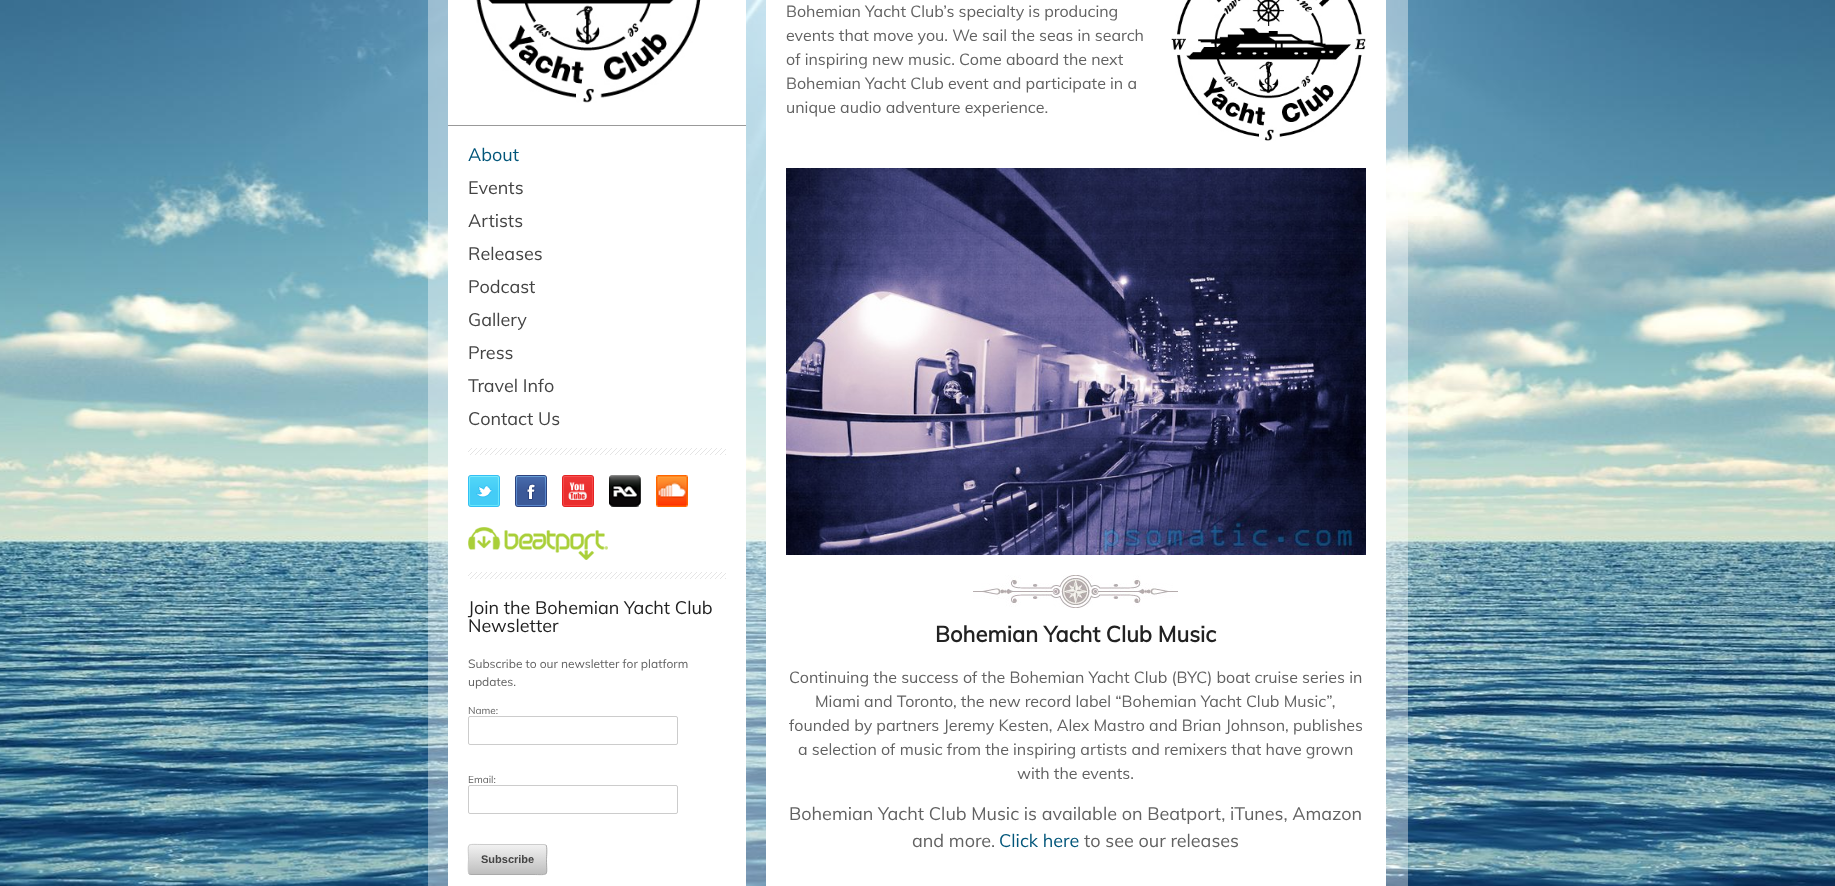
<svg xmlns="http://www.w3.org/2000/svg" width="1835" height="886">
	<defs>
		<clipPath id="clip1"><rect x="468" y="844" width="79" height="31" rx="3" /></clipPath>
		<linearGradient id="g1" gradientUnits="userSpaceOnUse" x1="508" y1="845" x2="508" y2="874"><stop offset="0" stop-color="#FFFFFF" stop-opacity="0.2" /><stop offset="1" stop-color="#000000" stop-opacity="0.2" /></linearGradient>
	</defs>
	<rect width="100%" height="100%" fill="#FFFFFF" />
	<image x="0" y="0" width="1835" height="886" href="assets/img1.png" />
	<rect x="428" y="0" width="980" height="886" fill="#FFFFFF" fill-opacity="0.4" />
	<rect x="448" y="0" width="298" height="886" fill="#FFFFFF" />
	<rect x="448" y="125" width="298" height="1" fill="#999999" />
	<image x="476" y="0" width="225" height="103" href="assets/img2.png" />
	<text x="468" y="161" font-family="Muli" font-size="18" fill="#02567A">About</text>
	<g font-family="Muli" font-size="18" fill="#444444">
		<text x="468" y="194">Events</text>
		<text x="468" y="227">Artists</text>
		<text x="468" y="260">Releases</text>
		<text x="468" y="293">Podcast</text>
		<text x="468" y="326">Gallery</text>
		<text x="468" y="359">Press</text>
		<text x="468" y="392">Travel Info</text>
		<text x="468" y="425">Contact Us</text>
	</g>
	<image x="468" y="448" width="258" height="7" href="assets/img3.png" />
	<image x="468" y="475" width="32" height="32" href="assets/img4.png" />
	<image x="515" y="475" width="32" height="32" href="assets/img5.png" />
	<image x="562" y="475" width="32" height="32" href="assets/img6.png" />
	<image x="609" y="475" width="32" height="32" href="assets/img7.png" />
	<image x="656" y="475" width="32" height="32" href="assets/img8.png" />
	<image x="468" y="527" width="140" height="33" href="assets/img9.png" />
	<image x="468" y="572" width="258" height="7" href="assets/img3.png" />
	<g font-family="Muli" font-size="18" fill="#222222">
		<text x="468" y="614">Join the Bohemian Yacht Club</text>
		<text x="468" y="632">Newsletter</text>
	</g>
	<g font-family="Muli" font-size="12" fill="#626262">
		<text x="468" y="668">Subscribe to our newsletter for platform</text>
		<text x="468" y="686">updates.</text>
	</g>
	<text x="468" y="714" font-family="Muli" font-size="10" fill="#626262">Name:</text>
	<rect x="468.5" y="716.5" width="209" height="28" rx="1.5" fill="none" stroke="#CCCCCC" />
	<text x="468" y="783" font-family="Muli" font-size="10" fill="#626262">Email:</text>
	<rect x="468.5" y="785.5" width="209" height="28" rx="1.5" fill="none" stroke="#CCCCCC" />
	<rect x="468" y="844" width="79" height="31" rx="3" fill="#EEEEEE" />
	<g clip-path="url(#clip1)">
		<rect x="468" y="845" width="79" height="29" fill="url(#g1)" />
	</g>
	<path d="M546 845C547.5 847 546.5 857 546.5 859.5C546.5 877 550 874.5 532 874.5H471L469 874" fill="none" stroke="#AAAAAA" />
	<path d="M469 874C467.5 872 468.5 862 468.5 859.5C468.5 842 465 844.5 483 844.5H544L546 845" fill="none" stroke="#CCCCCC" />
	<text x="481" y="863" font-family="Liberation Sans" font-size="11" font-weight="700" fill="#444444">Subscribe</text>
	<rect x="766" y="0" width="620" height="886" fill="#FFFFFF" />
	<g font-family="Muli" font-size="16" fill="#626262">
		<text x="786" y="17">Bohemian Yacht Club’s specialty is producing</text>
		<text x="786" y="41">events that move you. We sail the seas in search</text>
		<text x="786" y="65">of inspiring new music. Come aboard the next</text>
		<text x="786" y="89">Bohemian Yacht Club event and participate in a</text>
		<text x="786" y="113">unique audio adventure experience.</text>
	</g>
	<image x="786" y="168" width="580" height="387" href="assets/img10.png" />
	<image x="973" y="575" width="205" height="33" href="assets/img11.png" />
	<image x="1171" y="0" width="195" height="141" href="assets/img12.png" />
	<text x="935" y="642" font-family="Muli" font-size="22" font-weight="700" fill="#222222">Bohemian Yacht Club Music</text>
	<g font-family="Muli" font-size="16" fill="#626262">
		<text x="789" y="683">Continuing the success of the Bohemian Yacht Club (BYC) boat cruise series in</text>
		<text x="815" y="707">Miami and Toronto, the new record label “Bohemian Yacht Club Music”,</text>
		<text x="789" y="731">founded by partners Jeremy Kesten, Alex Mastro and Brian Johnson, publishes</text>
		<text x="798" y="755">a selection of music from the inspiring artists and remixers that have grown</text>
		<text x="1017" y="779">with the events.</text>
	</g>
	<g font-family="Muli" font-size="18" fill="#626262">
		<text x="789" y="820">Bohemian Yacht Club Music is available on Beatport, iTunes, Amazon</text>
		<text x="912" y="847">and more.</text>
	</g>
	<text x="999" y="847" font-family="Muli" font-size="18" fill="#02567A">Click here</text>
	<text x="1084" y="847" font-family="Muli" font-size="18" fill="#626262">to see our releases</text>
</svg>
